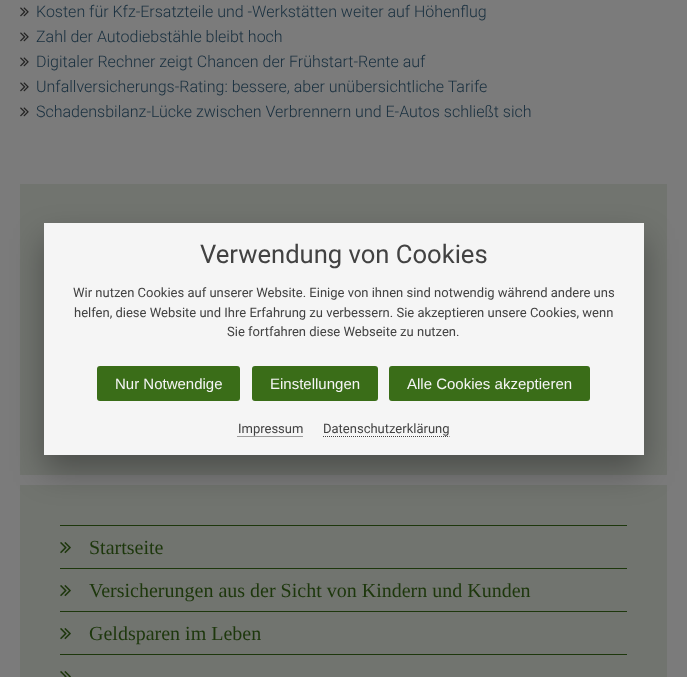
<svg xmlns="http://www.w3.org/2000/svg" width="687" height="677">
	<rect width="100%" height="100%" fill="#7B7B7B" />
	<image x="20" y="7" width="9" height="10" href="assets/img1.png" />
	<text x="36" y="17" font-family="Roboto" font-size="16" font-weight="300" fill="#172E3E">Kosten für Kfz-Ersatzteile und -Werkstätten weiter auf Höhenflug</text>
	<image x="20" y="32" width="9" height="10" href="assets/img1.png" />
	<text x="36" y="42" font-family="Roboto" font-size="16" font-weight="300" fill="#172E3E">Zahl der Autodiebstähle bleibt hoch</text>
	<image x="20" y="57" width="9" height="10" href="assets/img1.png" />
	<text x="36" y="67" font-family="Roboto" font-size="16" font-weight="300" fill="#172E3E">Digitaler Rechner zeigt Chancen der Frühstart-Rente auf</text>
	<image x="20" y="82" width="9" height="10" href="assets/img1.png" />
	<text x="36" y="92" font-family="Roboto" font-size="16" font-weight="300" fill="#172E3E">Unfallversicherungs-Rating: bessere, aber unübersichtliche Tarife</text>
	<image x="20" y="107" width="9" height="10" href="assets/img1.png" />
	<text x="36" y="117" font-family="Roboto" font-size="16" font-weight="300" fill="#172E3E">Schadensbilanz-Lücke zwischen Verbrennern und E-Autos schließt sich</text>
	<rect x="20" y="184" width="647" height="291" fill="#71746F" />
	<rect x="20" y="485" width="647" height="192" fill="#71746F" />
	<rect x="60" y="525" width="567" height="1" fill="#1D370C" />
	<rect x="60" y="568" width="567" height="1" fill="#1D370C" />
	<image x="60" y="542" width="11" height="12" href="assets/img2.png" />
	<text x="89" y="554" font-family="Liberation Serif" font-size="20" fill="#1D370C">Startseite</text>
	<rect x="60" y="611" width="567" height="1" fill="#1D370C" />
	<image x="60" y="585" width="11" height="12" href="assets/img2.png" />
	<text x="89" y="597" font-family="Liberation Serif" font-size="20" fill="#1D370C">Versicherungen aus der Sicht von Kindern und Kunden</text>
	<rect x="60" y="654" width="567" height="1" fill="#1D370C" />
	<image x="60" y="628" width="11" height="12" href="assets/img2.png" />
	<text x="89" y="640" font-family="Liberation Serif" font-size="20" fill="#1D370C">Geldsparen im Leben</text>
	<image x="60" y="671" width="11" height="6" href="assets/img3.png" />
	<rect x="44" y="239" width="600" height="232" fill="#000000" fill-opacity="0.32" filter="blur(16px)" />
	<rect x="44" y="223" width="600" height="232" fill="#F5F5F5" />
	<text x="200" y="263" font-family="Roboto" font-size="25.6" fill="#424242">Verwendung von Cookies</text>
	<g font-family="Roboto" font-size="13" fill="#424242">
		<text x="73" y="297">Wir nutzen Cookies auf unserer Website. Einige von ihnen sind notwendig während andere uns</text>
		<text x="74" y="317">helfen, diese Website und Ihre Erfahrung zu verbessern. Sie akzeptieren unsere Cookies, wenn</text>
		<text x="227" y="336">Sie fortfahren diese Webseite zu nutzen.</text>
	</g>
	<rect x="97" y="366" width="143" height="35" rx="3" fill="#3A6D18" />
	<text x="115" y="389" font-family="Liberation Sans" font-size="15" fill="#F5F5F5">Nur Notwendige</text>
	<rect x="252" y="366" width="126" height="35" rx="3" fill="#3A6D18" />
	<text x="270" y="389" font-family="Liberation Sans" font-size="15" fill="#F5F5F5">Einstellungen</text>
	<rect x="389" y="366" width="201" height="35" rx="3" fill="#3A6D18" />
	<text x="407" y="389" font-family="Liberation Sans" font-size="15" fill="#F5F5F5">Alle Cookies akzeptieren</text>
	<text x="238" y="433" font-family="Roboto" font-size="13" fill="#424242">Impressum</text>
	<path d="M237.5 436.5H303" fill="none" stroke="#424242" stroke-dasharray="1 1" />
	<text x="323" y="433" font-family="Roboto" font-size="13" fill="#424242">Datenschutzerklärung</text>
	<path d="M323 436.5H449.5" fill="none" stroke="#424242" stroke-dasharray="1 1" />
</svg>
